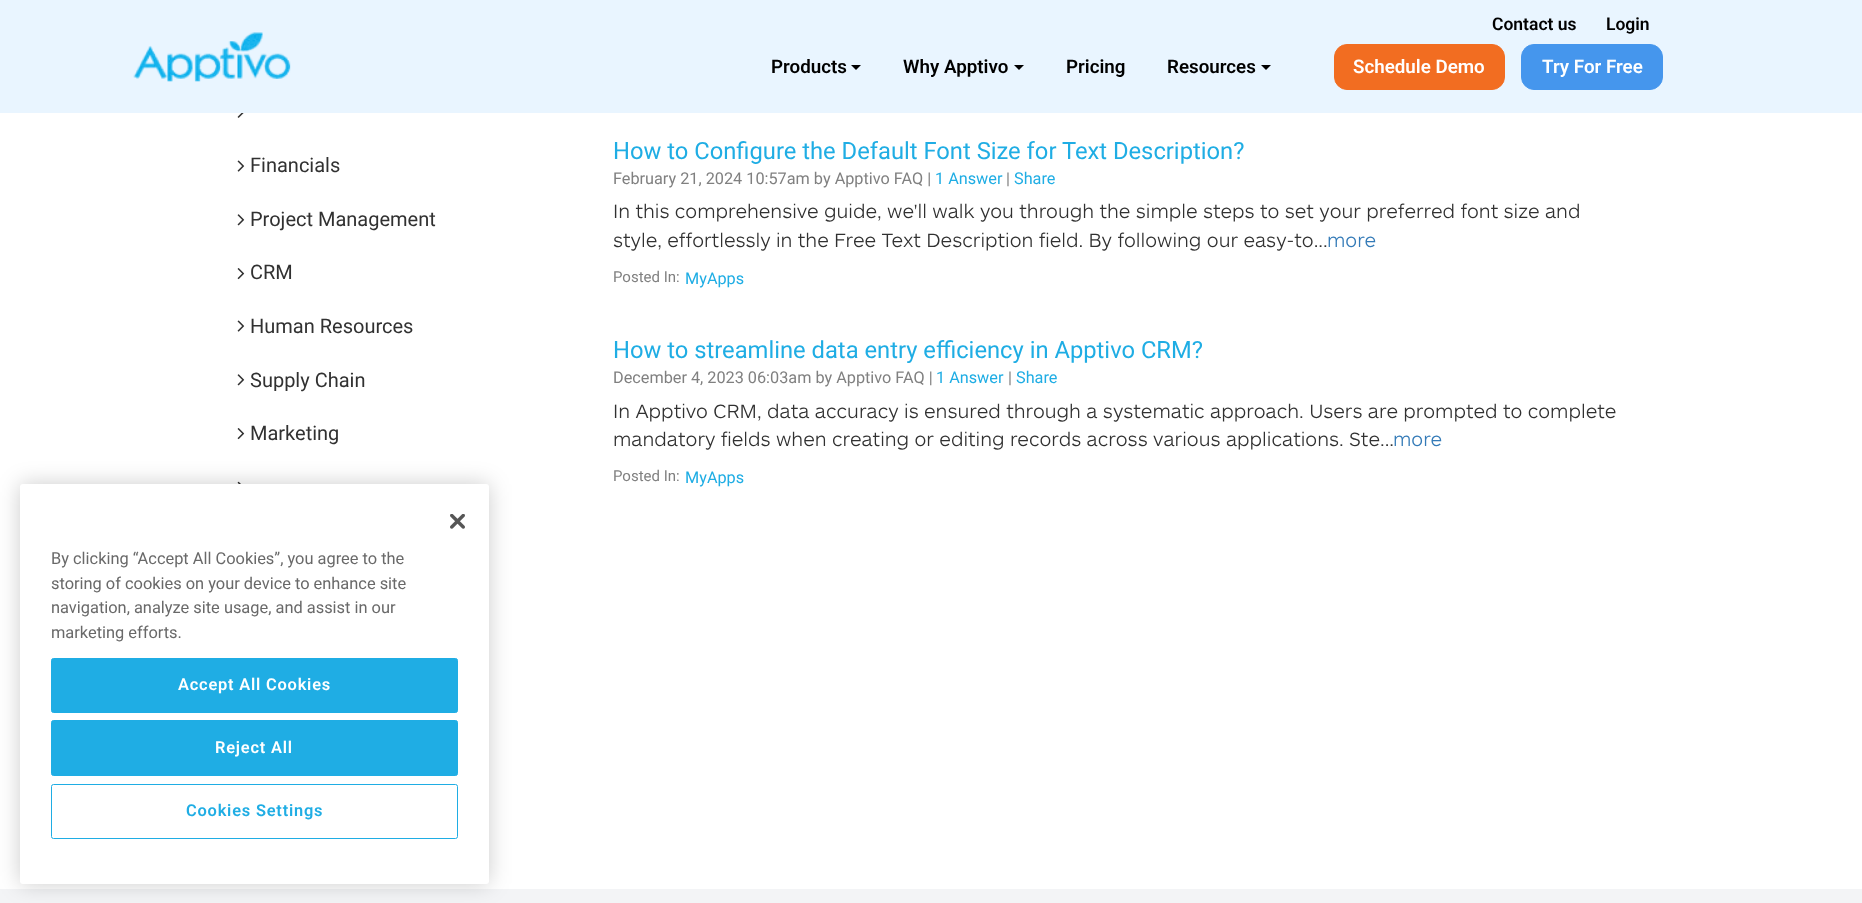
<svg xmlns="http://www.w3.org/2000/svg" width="1862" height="903">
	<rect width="100%" height="100%" fill="#FFFFFF" />
	<rect x="0" y="0" width="1862" height="113" fill="#E9F5FF" />
	<g font-family="Roboto" font-size="17.5" font-weight="600" fill="#000000">
		<text x="1492" y="30">Contact us</text>
		<text x="1606" y="30">Login</text>
	</g>
	<image x="133" y="32" width="158" height="50" href="assets/img1.png" />
	<text x="771" y="73" font-family="Roboto" font-size="18.75" font-weight="600" fill="#000000">Products</text>
	<path d="M851 65H861L856 70Z" fill="#000000" />
	<text x="903" y="73" font-family="Roboto" font-size="18.75" font-weight="600" fill="#000000">Why Apptivo</text>
	<path d="M1014 65H1024L1019 70Z" fill="#000000" />
	<g font-family="Roboto" font-size="18.75" font-weight="600" fill="#000000">
		<text x="1066" y="73">Pricing</text>
		<text x="1167" y="73">Resources</text>
	</g>
	<path d="M1261 65H1271L1266 70Z" fill="#000000" />
	<rect x="1334.5" y="44.5" width="170" height="45" rx="12.5" fill="#F26D21" stroke="#F26D21" />
	<text x="1353" y="73" font-family="Roboto" font-size="18.75" font-weight="600" fill="#FFFFFF">Schedule Demo</text>
	<rect x="1521.5" y="44.5" width="141" height="45" rx="12.5" fill="#4596ED" stroke="#4596ED" />
	<text x="1542" y="73" font-family="Roboto" font-size="18.75" font-weight="600" fill="#FFFFFF">Try For Free</text>
	<image x="237" y="113" width="7" height="5" href="assets/img2.png" />
	<image x="237" y="160" width="8" height="12" href="assets/img3.png" />
	<text x="250" y="172" font-family="Roboto" font-size="20" fill="#313131">Financials</text>
	<image x="237" y="214" width="8" height="12" href="assets/img4.png" />
	<text x="250" y="226" font-family="Roboto" font-size="20" fill="#313131">Project Management</text>
	<image x="237" y="268" width="8" height="12" href="assets/img5.png" />
	<text x="250" y="279" font-family="Roboto" font-size="20" fill="#313131">CRM</text>
	<image x="237" y="320" width="8" height="12" href="assets/img3.png" />
	<text x="250" y="333" font-family="Roboto" font-size="20" fill="#313131">Human Resources</text>
	<image x="237" y="374" width="8" height="12" href="assets/img4.png" />
	<text x="250" y="387" font-family="Roboto" font-size="20" fill="#313131">Supply Chain</text>
	<image x="237" y="428" width="8" height="12" href="assets/img5.png" />
	<text x="250" y="440" font-family="Roboto" font-size="20" fill="#313131">Marketing</text>
	<image x="237" y="481" width="4" height="3" href="assets/img6.png" />
	<text x="613" y="159" font-family="Roboto" font-size="23.75" fill="#1FADE4">How to Configure the Default Font Size for Text Description?</text>
	<text x="613" y="184" font-family="Roboto" font-size="16.25" fill="#808080">February 21, 2024 10:57am by Apptivo FAQ |</text>
	<text x="935" y="184" font-family="Roboto" font-size="16.25" fill="#1FADE4">1 Answer</text>
	<text x="1006" y="184" font-family="Roboto" font-size="16.25" fill="#808080">|</text>
	<text x="1014" y="184" font-family="Roboto" font-size="16.25" fill="#1FADE4">Share</text>
	<g font-family="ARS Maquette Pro" font-size="20" font-weight="300" fill="#313131">
		<text x="613" y="218">In this comprehensive guide, we'll walk you through the simple steps to set your preferred font size and</text>
		<text x="613" y="247">style, effortlessly in the Free Text Description field. By following our easy-to...</text>
	</g>
	<text x="1327" y="247" font-family="ARS Maquette Pro" font-size="20" font-weight="300" fill="#337AB7">more</text>
	<text x="613" y="282" font-family="Roboto" font-size="15" fill="#808080">Posted In:</text>
	<text x="685" y="284" font-family="Roboto" font-size="16.25" fill="#1FADE4">MyApps</text>
	<text x="613" y="358" font-family="Roboto" font-size="23.75" fill="#1FADE4">How to streamline data entry efficiency in Apptivo CRM?</text>
	<text x="613" y="383" font-family="Roboto" font-size="16.25" fill="#808080">December 4, 2023 06:03am by Apptivo FAQ |</text>
	<text x="936" y="383" font-family="Roboto" font-size="16.25" fill="#1FADE4">1 Answer</text>
	<text x="1008" y="383" font-family="Roboto" font-size="16.25" fill="#808080">|</text>
	<text x="1016" y="383" font-family="Roboto" font-size="16.25" fill="#1FADE4">Share</text>
	<g font-family="ARS Maquette Pro" font-size="20" font-weight="300" fill="#313131">
		<text x="613" y="418">In Apptivo CRM, data accuracy is ensured through a systematic approach. Users are prompted to complete</text>
		<text x="613" y="446">mandatory fields when creating or editing records across various applications. Ste...</text>
	</g>
	<text x="1393" y="446" font-family="ARS Maquette Pro" font-size="20" font-weight="300" fill="#337AB7">more</text>
	<text x="613" y="481" font-family="Roboto" font-size="15" fill="#808080">Posted In:</text>
	<text x="685" y="483" font-family="Roboto" font-size="16.25" fill="#1FADE4">MyApps</text>
	<rect x="0" y="889" width="1862" height="14" fill="#F3F4F6" />
	<rect x="20" y="484" width="469" height="400" rx="3" fill="#000000" fill-opacity="0.2" filter="blur(11px)" />
	<rect x="20" y="484" width="469" height="400" rx="3" fill="#FFFFFF" />
	<image x="450" y="514" width="15" height="15" href="assets/img7.png" />
	<g font-family="Roboto" font-size="16.4" fill="#696969">
		<text x="51" y="564">By clicking “Accept All Cookies”, you agree to the</text>
		<text x="51" y="589">storing of cookies on your device to enhance site</text>
		<text x="51" y="613">navigation, analyze site usage, and assist in our</text>
		<text x="51" y="638">marketing efforts.</text>
	</g>
	<rect x="51.5" y="658.5" width="406" height="54" rx="2" fill="#1FADE4" stroke="#1FADE4" />
	<text x="178" y="690" font-family="Roboto" font-size="16.4" font-weight="600" letter-spacing="0.8" fill="#FFFFFF">Accept All Cookies</text>
	<rect x="51.5" y="720.5" width="406" height="55" rx="2" fill="#1FADE4" stroke="#1FADE4" />
	<text x="215" y="753" font-family="Roboto" font-size="16.4" font-weight="600" letter-spacing="0.8" fill="#FFFFFF">Reject All</text>
	<rect x="51.5" y="784.5" width="406" height="54" rx="2" fill="none" stroke="#1FADE4" />
	<text x="186" y="816" font-family="Roboto" font-size="16.4" font-weight="600" letter-spacing="0.8" fill="#1FADE4">Cookies Settings</text>
</svg>
